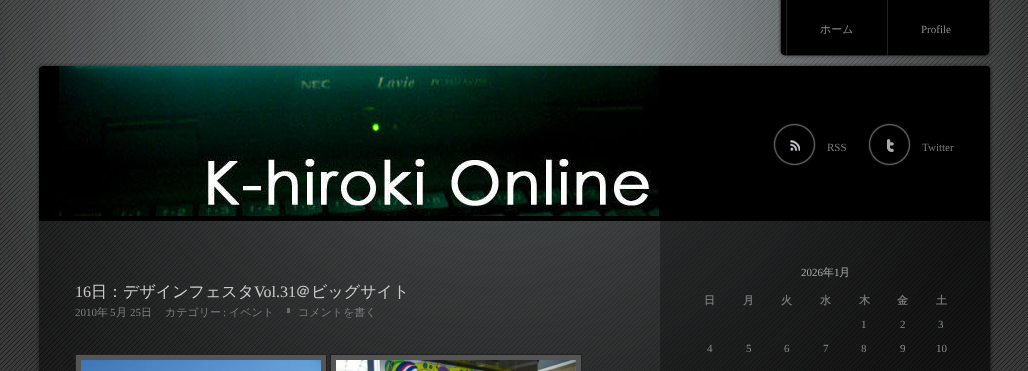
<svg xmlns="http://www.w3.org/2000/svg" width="1028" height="371">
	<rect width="100%" height="100%" fill="#FFFFFF" />
	<image x="0" y="0" width="1028" height="371" href="assets/img1.png" />
	<image x="0" y="0" width="1028" height="371" href="assets/img2.png" />
	<image x="778" y="0" width="8" height="58" href="assets/img3.png" />
	<image x="786" y="0" width="198" height="59" href="assets/img4.png" />
	<rect x="786" y="0" width="1" height="55" fill="#222222" />
	<text x="820" y="33" font-family="WenQuanYi Zen Hei" font-size="11" font-weight="500" fill="#868A8D">ホーム</text>
	<rect x="887" y="0" width="1" height="55" fill="#222222" />
	<text x="921" y="33" font-family="Liberation Serif" font-size="11" fill="#868A8D">Profile</text>
	<image x="984" y="0" width="8" height="58" href="assets/img5.png" />
	<image x="36" y="63" width="957" height="158" href="assets/img6.png" />
	<image x="59" y="66" width="600" height="150" href="assets/img7.png" />
	<image x="773" y="123" width="43" height="43" href="assets/img8.png" />
	<text x="827" y="151" font-family="Liberation Serif" font-size="11" fill="#777777">RSS</text>
	<image x="868" y="123" width="43" height="43" href="assets/img9.png" />
	<text x="922" y="151" font-family="Liberation Serif" font-size="11" fill="#777777">Twitter</text>
	<image x="36" y="221" width="957" height="150" href="assets/img10.png" />
	<text x="75" y="297" font-family="Liberation Serif" font-size="16" fill="#CCCCCC">16</text>
	<text x="91" y="297" font-family="WenQuanYi Zen Hei" font-size="16" font-weight="500" fill="#CCCCCC">日：デザインフェスタ</text>
	<text x="254" y="297" font-family="Liberation Serif" font-size="16" fill="#CCCCCC">Vol.31</text>
	<text x="295" y="297" font-family="WenQuanYi Zen Hei" font-size="16" font-weight="500" fill="#CCCCCC">＠ビッグサイト</text>
	<text x="75" y="316" font-family="Liberation Serif" font-size="11" fill="#797F80">2010</text>
	<text x="97" y="316" font-family="WenQuanYi Zen Hei" font-size="11" font-weight="500" fill="#797F80">年</text>
	<text x="110" y="316" font-family="Liberation Serif" font-size="11" fill="#797F80">5</text>
	<text x="116" y="316" font-family="WenQuanYi Zen Hei" font-size="11" font-weight="500" fill="#797F80">月</text>
	<text x="130" y="316" font-family="Liberation Serif" font-size="11" fill="#797F80">25</text>
	<g font-family="WenQuanYi Zen Hei" font-size="11" font-weight="500" fill="#797F80">
		<text x="141" y="316">日</text>
		<text x="165" y="316">カテゴリー</text>
	</g>
	<text x="223" y="316" font-family="Liberation Serif" font-size="11" fill="#797F80">:</text>
	<g font-family="WenQuanYi Zen Hei" font-size="11" font-weight="500" fill="#777777">
		<text x="229" y="316">イベント</text>
		<text x="298" y="316">コメントを書く</text>
	</g>
	<rect x="287" y="308" width="3" height="5" fill="#6A6A6A" />
	<rect x="75.5" y="354.5" width="251" height="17" fill="#555555" stroke="#222222" />
	<rect x="330.5" y="354.5" width="251" height="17" fill="#555555" stroke="#222222" />
	<image x="81" y="360" width="240" height="11" href="assets/img11.png" />
	<image x="336" y="360" width="240" height="11" href="assets/img12.png" />
	<text x="801" y="276" font-family="Liberation Serif" font-size="11" fill="#AAAAAA">2026</text>
	<text x="823" y="276" font-family="WenQuanYi Zen Hei" font-size="11" font-weight="500" fill="#AAAAAA">年</text>
	<text x="834" y="276" font-family="Liberation Serif" font-size="11" fill="#AAAAAA">1</text>
	<text x="839" y="276" font-family="WenQuanYi Zen Hei" font-size="11" font-weight="500" fill="#AAAAAA">月</text>
	<g font-family="WenQuanYi Zen Hei" font-size="11" font-weight="700" fill="#777777">
		<text x="704" y="304">日</text>
		<text x="743" y="304">月</text>
		<text x="781" y="304">火</text>
		<text x="820" y="304">水</text>
		<text x="859" y="304">木</text>
		<text x="897" y="304">金</text>
		<text x="936" y="304">土</text>
	</g>
	<g font-family="Liberation Serif" font-size="11" fill="#868A8D">
		<text x="861" y="328">1</text>
		<text x="900" y="328">2</text>
		<text x="938" y="328">3</text>
		<text x="707" y="352">4</text>
		<text x="746" y="352">5</text>
		<text x="784" y="352">6</text>
		<text x="823" y="352">7</text>
		<text x="861" y="352">8</text>
		<text x="900" y="352">9</text>
		<text x="936" y="352">10</text>
	</g>
</svg>
